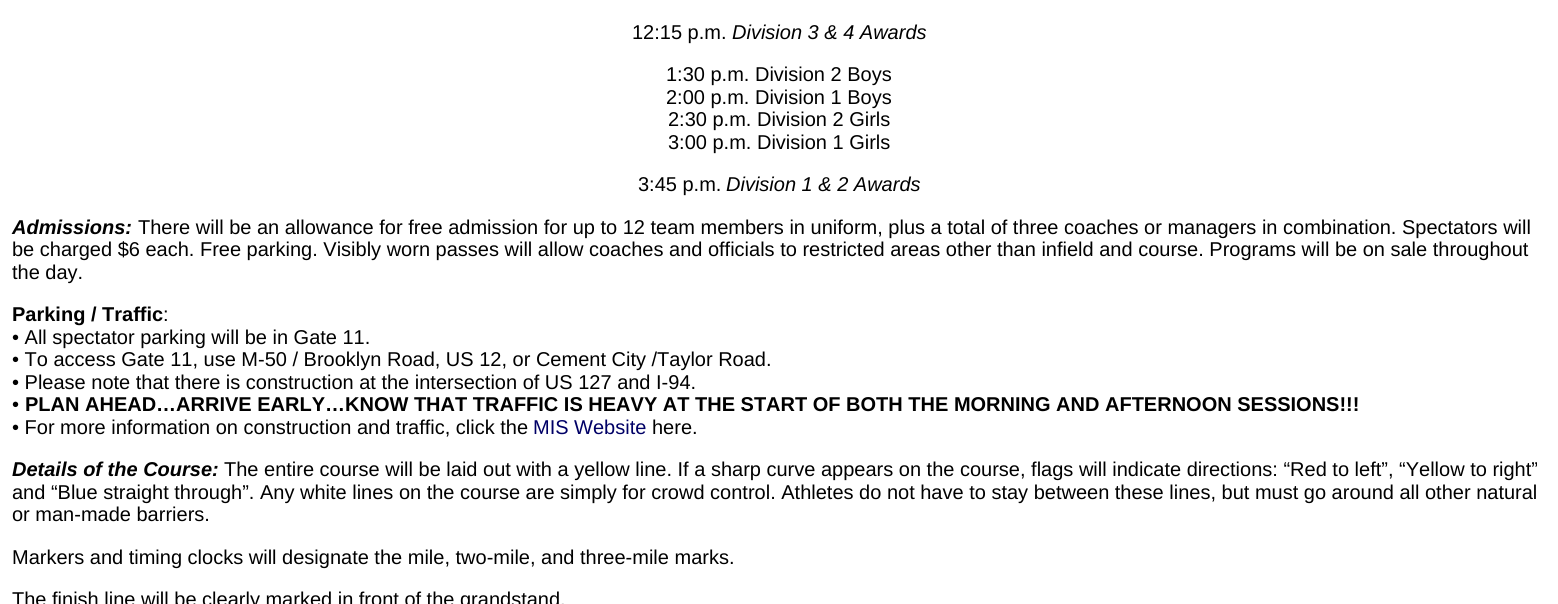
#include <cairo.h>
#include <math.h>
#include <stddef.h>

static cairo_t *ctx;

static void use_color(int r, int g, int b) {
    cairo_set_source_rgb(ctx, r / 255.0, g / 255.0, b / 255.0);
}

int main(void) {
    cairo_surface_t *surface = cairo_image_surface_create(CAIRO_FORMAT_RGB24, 1558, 604);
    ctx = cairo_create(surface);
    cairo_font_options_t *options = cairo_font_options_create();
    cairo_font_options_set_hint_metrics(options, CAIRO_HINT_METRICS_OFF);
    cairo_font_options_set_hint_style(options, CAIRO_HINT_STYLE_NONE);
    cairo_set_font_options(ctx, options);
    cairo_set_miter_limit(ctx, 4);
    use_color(255, 255, 255);
    cairo_paint(ctx);
    cairo_select_font_face(ctx, "Liberation Sans", CAIRO_FONT_SLANT_NORMAL, CAIRO_FONT_WEIGHT_NORMAL);
    cairo_set_font_size(ctx, 20);
    use_color(0, 0, 0);
    cairo_move_to(ctx, 632, 39);
    cairo_show_text(ctx, "12:15 p.m.");
    cairo_select_font_face(ctx, "Liberation Sans", CAIRO_FONT_SLANT_ITALIC, CAIRO_FONT_WEIGHT_NORMAL);
    cairo_move_to(ctx, 732, 39);
    cairo_show_text(ctx, "Division 3 & 4 Awards");
    cairo_select_font_face(ctx, "Liberation Sans", CAIRO_FONT_SLANT_NORMAL, CAIRO_FONT_WEIGHT_NORMAL);
    cairo_move_to(ctx, 666, 81);
    cairo_show_text(ctx, "1:30 p.m. Division 2 Boys");
    cairo_move_to(ctx, 666, 104);
    cairo_show_text(ctx, "2:00 p.m. Division 1 Boys");
    cairo_move_to(ctx, 668, 126);
    cairo_show_text(ctx, "2:30 p.m. Division 2 Girls");
    cairo_move_to(ctx, 668, 149);
    cairo_show_text(ctx, "3:00 p.m. Division 1 Girls");
    cairo_move_to(ctx, 638, 191);
    cairo_show_text(ctx, "3:45 p.m.");
    cairo_select_font_face(ctx, "Liberation Sans", CAIRO_FONT_SLANT_ITALIC, CAIRO_FONT_WEIGHT_NORMAL);
    cairo_move_to(ctx, 726, 191);
    cairo_show_text(ctx, "Division 1 & 2 Awards");
    cairo_select_font_face(ctx, "Liberation Sans", CAIRO_FONT_SLANT_ITALIC, CAIRO_FONT_WEIGHT_BOLD);
    cairo_move_to(ctx, 12, 234);
    cairo_show_text(ctx, "Admissions:");
    cairo_select_font_face(ctx, "Liberation Sans", CAIRO_FONT_SLANT_NORMAL, CAIRO_FONT_WEIGHT_NORMAL);
    cairo_move_to(ctx, 138, 234);
    cairo_show_text(ctx, "There will be an allowance for free admission for up to 12 team members in uniform, plus a total of three coaches or managers in combination. Spectators will");
    cairo_move_to(ctx, 12, 256);
    cairo_show_text(ctx, "be charged $6 each. Free parking. Visibly worn passes will allow coaches and officials to restricted areas other than infield and course. Programs will be on sale throughout");
    cairo_move_to(ctx, 12, 279);
    cairo_show_text(ctx, "the day.");
    cairo_select_font_face(ctx, "Liberation Sans", CAIRO_FONT_SLANT_NORMAL, CAIRO_FONT_WEIGHT_BOLD);
    cairo_move_to(ctx, 12, 321);
    cairo_show_text(ctx, "Parking / Traffic");
    cairo_select_font_face(ctx, "Liberation Sans", CAIRO_FONT_SLANT_NORMAL, CAIRO_FONT_WEIGHT_NORMAL);
    cairo_move_to(ctx, 163, 321);
    cairo_show_text(ctx, ":");
    cairo_move_to(ctx, 12, 344);
    cairo_show_text(ctx, "• All spectator parking will be in Gate 11.");
    cairo_move_to(ctx, 12, 366);
    cairo_show_text(ctx, "• To access Gate 11, use M-50 / Brooklyn Road, US 12, or Cement City /Taylor Road.");
    cairo_move_to(ctx, 12, 389);
    cairo_show_text(ctx, "• Please note that there is construction at the intersection of US 127 and I-94.");
    cairo_move_to(ctx, 12, 411);
    cairo_show_text(ctx, "•");
    cairo_select_font_face(ctx, "Liberation Sans", CAIRO_FONT_SLANT_NORMAL, CAIRO_FONT_WEIGHT_BOLD);
    cairo_move_to(ctx, 25, 411);
    cairo_show_text(ctx, "PLAN AHEAD…ARRIVE EARLY…KNOW THAT TRAFFIC IS HEAVY AT THE START OF BOTH THE MORNING AND AFTERNOON SESSIONS!!!");
    cairo_select_font_face(ctx, "Liberation Sans", CAIRO_FONT_SLANT_NORMAL, CAIRO_FONT_WEIGHT_NORMAL);
    cairo_move_to(ctx, 12, 434);
    cairo_show_text(ctx, "• For more information on construction and traffic, click the");
    use_color(0, 0, 102);
    cairo_move_to(ctx, 533, 434);
    cairo_show_text(ctx, "MIS Website");
    use_color(0, 0, 0);
    cairo_move_to(ctx, 652, 434);
    cairo_show_text(ctx, "here.");
    cairo_select_font_face(ctx, "Liberation Sans", CAIRO_FONT_SLANT_ITALIC, CAIRO_FONT_WEIGHT_BOLD);
    cairo_move_to(ctx, 12, 476);
    cairo_show_text(ctx, "Details of the Course:");
    cairo_select_font_face(ctx, "Liberation Sans", CAIRO_FONT_SLANT_NORMAL, CAIRO_FONT_WEIGHT_NORMAL);
    cairo_move_to(ctx, 224, 476);
    cairo_show_text(ctx, "The entire course will be laid out with a yellow line. If a sharp curve appears on the course, flags will indicate directions: “Red to left”, “Yellow to right”");
    cairo_move_to(ctx, 12, 499);
    cairo_show_text(ctx, "and “Blue straight through”. Any white lines on the course are simply for crowd control. Athletes do not have to stay between these lines, but must go around all other natural");
    cairo_move_to(ctx, 12, 521);
    cairo_show_text(ctx, "or man-made barriers.");
    cairo_move_to(ctx, 12, 564);
    cairo_show_text(ctx, "Markers and timing clocks will designate the mile, two-mile, and three-mile marks.");
    cairo_move_to(ctx, 12, 606);
    cairo_show_text(ctx, "The finish line will be clearly marked in front of the grandstand.");
    cairo_surface_write_to_png(surface, "result.png");
    cairo_font_options_destroy(options);
    cairo_destroy(ctx);
    cairo_surface_destroy(surface);
    return 0;
}
